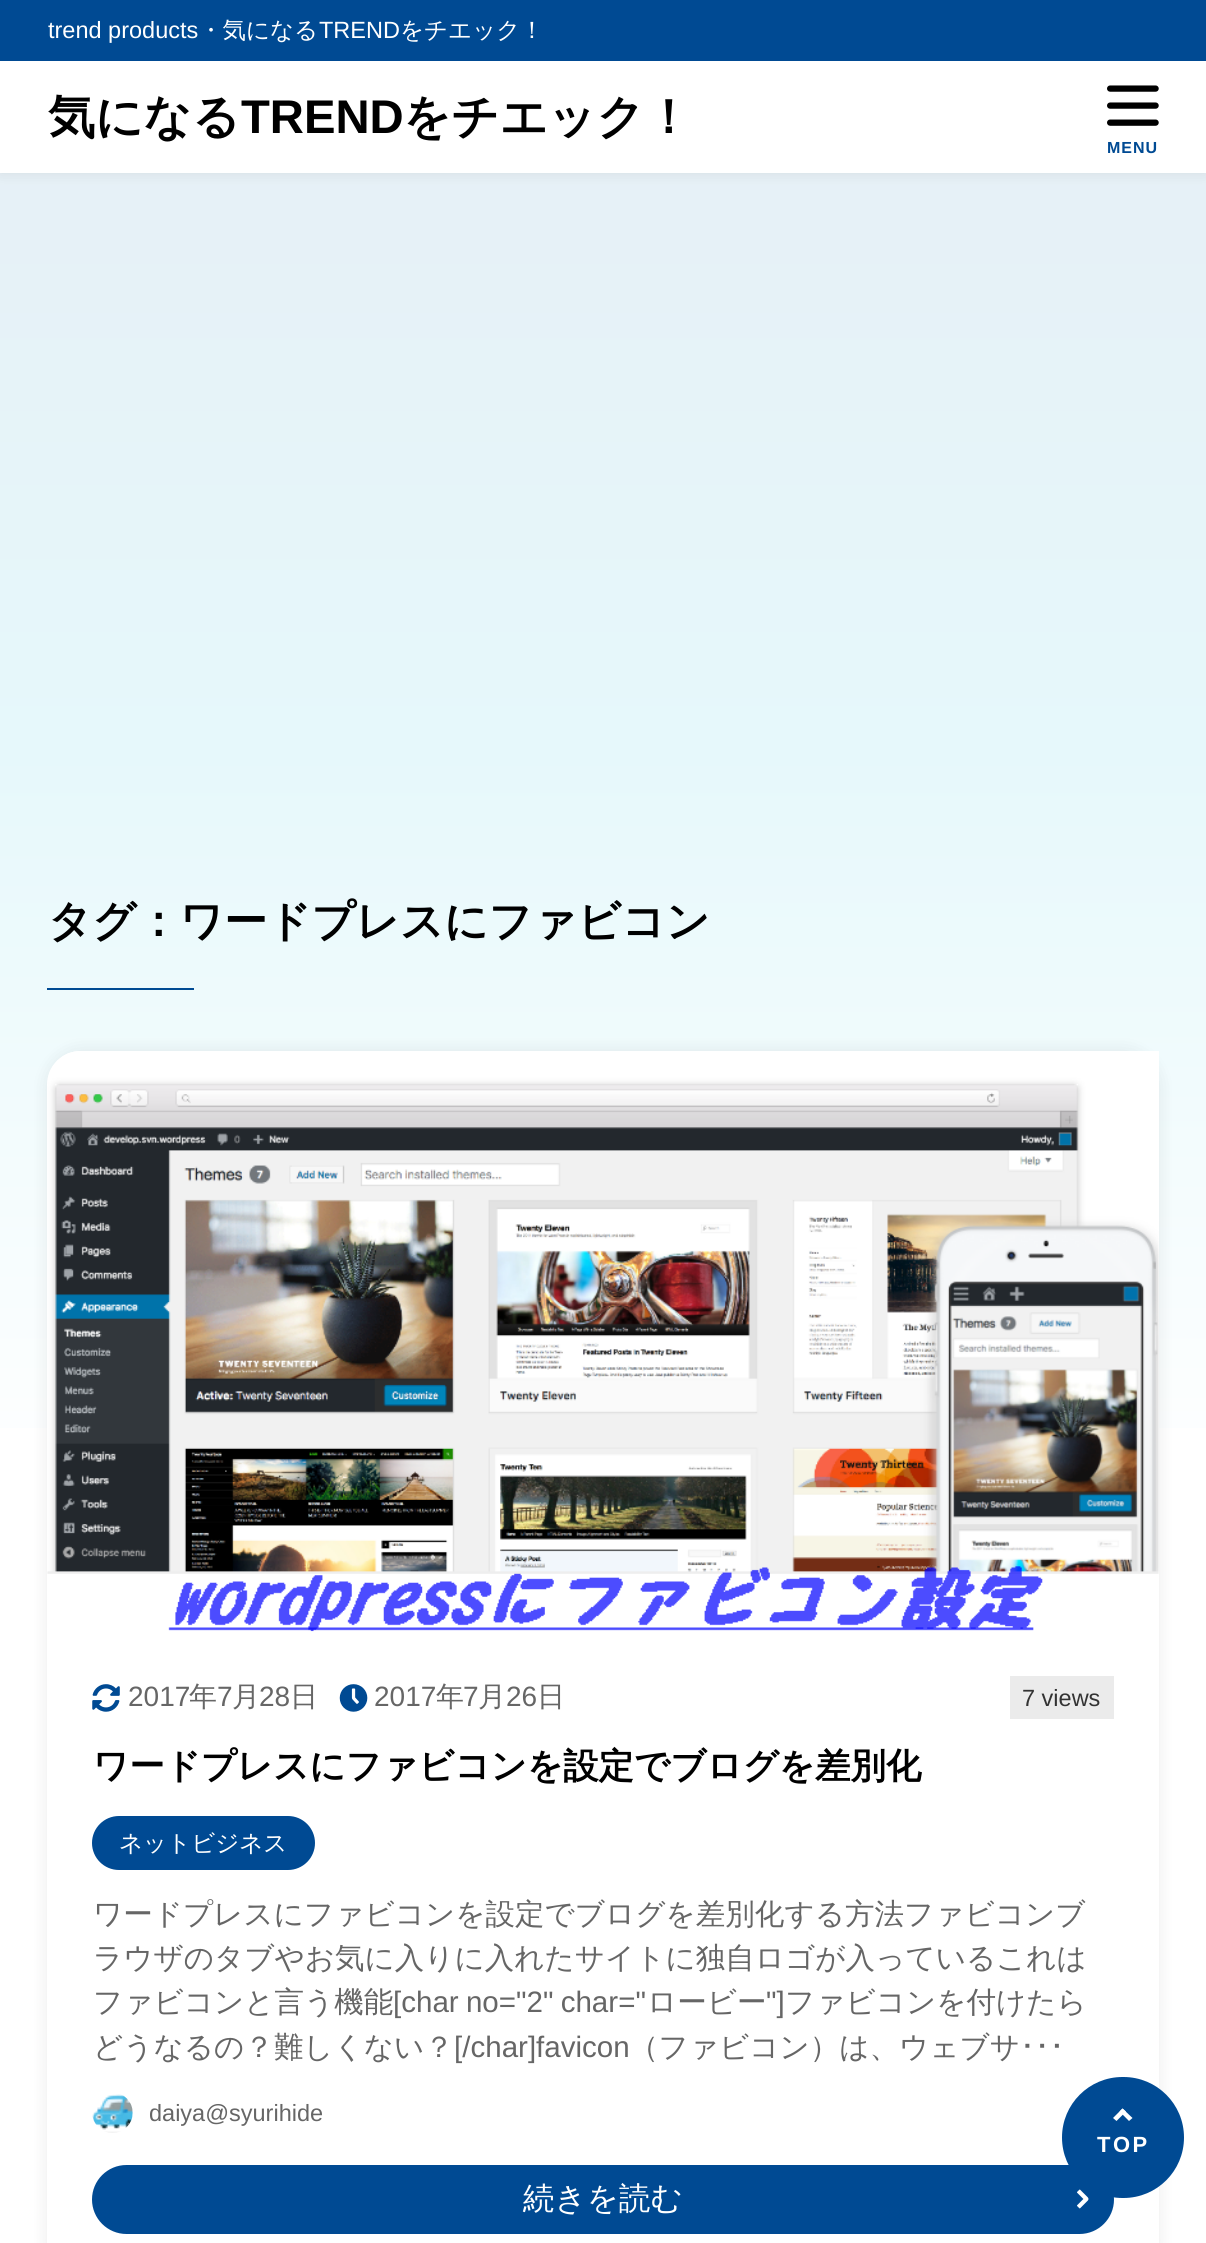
#include <cairo.h>
#include <math.h>
#include <stddef.h>

static cairo_t *ctx;

static void use_color(int r, int g, int b) {
    cairo_set_source_rgb(ctx, r / 255.0, g / 255.0, b / 255.0);
}

static void spaced_text(double x, double y, const char *s, double letter, double word) {
    cairo_move_to(ctx, x, y);
    while (*s) {
        char ch[5] = {0};
        int n = 0;
        do ch[n++] = *s++; while ((*s & 0xC0) == 0x80);
        cairo_show_text(ctx, ch);
        cairo_rel_move_to(ctx, letter + word * (*ch == ' '), 0);
    }
}

static void round_rect(double x, double y, double w, double h, double r) {
    cairo_new_sub_path(ctx);
    cairo_arc(ctx, x + w - r, y + h - r, r, 0, M_PI / 2);
    cairo_arc(ctx, x + r, y + h - r, r, M_PI / 2, M_PI);
    cairo_arc(ctx, x + r, y + r, r, M_PI, 1.5 * M_PI);
    cairo_arc(ctx, x + w - r, y + r, r, 1.5 * M_PI, 2 * M_PI);
    cairo_close_path(ctx);
}

static void shadow(double x, double y, double w, double h, double r, double blur, double alpha) {
    cairo_push_group_with_content(ctx, CAIRO_CONTENT_ALPHA);
    cairo_set_operator(ctx, CAIRO_OPERATOR_SOURCE);
    for (int i = 15; i >= -15 && fmin(w, h) + blur * i / 3 > 0; i -= 2) {
        double e = blur * i / 6;
        cairo_set_source_rgba(ctx, 0, 0, 0, alpha * erfc((i - 1) / 8.5) / 2);
        round_rect(x - e, y - e, w + 2 * e, h + 2 * e, fmax(0, fmin(r + e + blur * .6, fmin(w, h) / 2 + e)));
        cairo_fill(ctx);
    }
    cairo_pattern_t *soft = cairo_pop_group(ctx);
    cairo_mask(ctx, soft);
    cairo_pattern_destroy(soft);
}

static void picture(const char *path, double x, double y, double w, double h) {
    cairo_surface_t *image = cairo_image_surface_create_from_png(path);
    cairo_save(ctx);
    cairo_set_source_surface(ctx, image, x, y);
    cairo_rectangle(ctx, x, y, w, h);
    cairo_fill(ctx);
    cairo_restore(ctx);
    cairo_surface_destroy(image);
}

int main(void) {
    cairo_surface_t *surface = cairo_image_surface_create(CAIRO_FORMAT_RGB24, 1206, 2243);
    ctx = cairo_create(surface);
    cairo_font_options_t *options = cairo_font_options_create();
    cairo_font_options_set_hint_metrics(options, CAIRO_HINT_METRICS_OFF);
    cairo_font_options_set_hint_style(options, CAIRO_HINT_STYLE_NONE);
    cairo_set_font_options(ctx, options);
    cairo_set_miter_limit(ctx, 4);
    cairo_pattern_t *gradient;
    use_color(255, 255, 255);
    cairo_paint(ctx);
    gradient = cairo_pattern_create_linear(603, 0, 603, 1503);
    cairo_pattern_add_color_stop_rgba(gradient, 0, 0.902, 0.933, 0.961, 1);
    cairo_pattern_add_color_stop_rgba(gradient, 0.5, 0.902, 0.973, 0.984, 1);
    cairo_pattern_add_color_stop_rgba(gradient, 1, 1, 1, 1, 1);
    cairo_set_source(ctx, gradient);
    cairo_pattern_destroy(gradient);
    cairo_rectangle(ctx, 0, 173, 1206, 1255);
    cairo_fill(ctx);
    use_color(0, 0, 0);
    shadow(0, 0, 1206, 173, 0, 7, 0.08);
    use_color(255, 255, 255);
    cairo_rectangle(ctx, 0, 61, 1206, 112);
    cairo_fill(ctx);
    use_color(0, 74, 147);
    cairo_rectangle(ctx, 0, 0, 1206, 61);
    cairo_fill(ctx);
    cairo_select_font_face(ctx, "Liberation Sans", CAIRO_FONT_SLANT_NORMAL, CAIRO_FONT_WEIGHT_NORMAL);
    cairo_set_font_size(ctx, 23.5);
    use_color(255, 255, 255);
    cairo_move_to(ctx, 48, 38);
    cairo_show_text(ctx, "trend products");
    cairo_select_font_face(ctx, "WenQuanYi Zen Hei Medium", CAIRO_FONT_SLANT_NORMAL, CAIRO_FONT_WEIGHT_NORMAL);
    cairo_move_to(ctx, 199, 38);
    cairo_show_text(ctx, "・気になる");
    cairo_select_font_face(ctx, "Liberation Sans", CAIRO_FONT_SLANT_NORMAL, CAIRO_FONT_WEIGHT_NORMAL);
    cairo_move_to(ctx, 319, 38);
    cairo_show_text(ctx, "TREND");
    cairo_select_font_face(ctx, "WenQuanYi Zen Hei Medium", CAIRO_FONT_SLANT_NORMAL, CAIRO_FONT_WEIGHT_NORMAL);
    cairo_move_to(ctx, 400, 38);
    cairo_show_text(ctx, "をチエック！");
    cairo_select_font_face(ctx, "WenQuanYi Zen Hei", CAIRO_FONT_SLANT_NORMAL, CAIRO_FONT_WEIGHT_BOLD);
    cairo_set_font_size(ctx, 47.25);
    use_color(0, 0, 0);
    cairo_move_to(ctx, 48, 133);
    cairo_show_text(ctx, "気になる");
    cairo_select_font_face(ctx, "Liberation Sans", CAIRO_FONT_SLANT_NORMAL, CAIRO_FONT_WEIGHT_BOLD);
    cairo_move_to(ctx, 241, 133);
    cairo_show_text(ctx, "TREND");
    cairo_select_font_face(ctx, "WenQuanYi Zen Hei", CAIRO_FONT_SLANT_NORMAL, CAIRO_FONT_WEIGHT_BOLD);
    cairo_move_to(ctx, 403, 133);
    cairo_show_text(ctx, "をチエック！");
    picture("img1.png", 1107, 85, 52, 41);
    cairo_select_font_face(ctx, "Liberation Sans", CAIRO_FONT_SLANT_NORMAL, CAIRO_FONT_WEIGHT_BOLD);
    cairo_set_font_size(ctx, 16);
    use_color(0, 74, 147);
    spaced_text(1107, 153, "MENU", 1, 0);
    cairo_select_font_face(ctx, "WenQuanYi Zen Hei", CAIRO_FONT_SLANT_NORMAL, CAIRO_FONT_WEIGHT_BOLD);
    cairo_set_font_size(ctx, 43.25);
    use_color(0, 0, 0);
    cairo_move_to(ctx, 48, 936);
    cairo_show_text(ctx, "タグ：ワードプレスにファビコン");
    use_color(0, 74, 147);
    cairo_rectangle(ctx, 47, 988, 147, 2);
    cairo_fill(ctx);
    use_color(0, 0, 0);
    shadow(47, 1051, 1112, 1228, 34, 9, 0.08);
    use_color(255, 255, 255);
    cairo_new_path(ctx);
    cairo_move_to(ctx, 81, 1051);
    cairo_line_to(ctx, 1159, 1051);
    cairo_line_to(ctx, 1159, 2243);
    cairo_curve_to(ctx, 1159, 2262, 1144, 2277, 1125, 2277);
    cairo_line_to(ctx, 47, 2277);
    cairo_line_to(ctx, 47, 1085);
    cairo_curve_to(ctx, 47, 1066, 62, 1051, 81, 1051);
    cairo_close_path(ctx);
    cairo_fill(ctx);
    picture("img2.png", 47, 1051, 1112, 581);
    picture("img3.png", 92, 1684, 28, 28);
    cairo_select_font_face(ctx, "Liberation Sans", CAIRO_FONT_SLANT_NORMAL, CAIRO_FONT_WEIGHT_NORMAL);
    cairo_set_font_size(ctx, 28);
    use_color(102, 102, 102);
    cairo_move_to(ctx, 128, 1706);
    cairo_show_text(ctx, "2017");
    cairo_select_font_face(ctx, "WenQuanYi Zen Hei Medium", CAIRO_FONT_SLANT_NORMAL, CAIRO_FONT_WEIGHT_NORMAL);
    cairo_move_to(ctx, 189, 1706);
    cairo_show_text(ctx, "年");
    cairo_select_font_face(ctx, "Liberation Sans", CAIRO_FONT_SLANT_NORMAL, CAIRO_FONT_WEIGHT_NORMAL);
    cairo_move_to(ctx, 217, 1706);
    cairo_show_text(ctx, "7");
    cairo_select_font_face(ctx, "WenQuanYi Zen Hei Medium", CAIRO_FONT_SLANT_NORMAL, CAIRO_FONT_WEIGHT_NORMAL);
    cairo_move_to(ctx, 232, 1706);
    cairo_show_text(ctx, "月");
    cairo_select_font_face(ctx, "Liberation Sans", CAIRO_FONT_SLANT_NORMAL, CAIRO_FONT_WEIGHT_NORMAL);
    cairo_move_to(ctx, 259, 1706);
    cairo_show_text(ctx, "28");
    cairo_select_font_face(ctx, "WenQuanYi Zen Hei Medium", CAIRO_FONT_SLANT_NORMAL, CAIRO_FONT_WEIGHT_NORMAL);
    cairo_move_to(ctx, 290, 1706);
    cairo_show_text(ctx, "日");
    picture("img4.png", 339, 1684, 29, 28);
    cairo_select_font_face(ctx, "Liberation Sans", CAIRO_FONT_SLANT_NORMAL, CAIRO_FONT_WEIGHT_NORMAL);
    cairo_move_to(ctx, 374, 1706);
    cairo_show_text(ctx, "2017");
    cairo_select_font_face(ctx, "WenQuanYi Zen Hei Medium", CAIRO_FONT_SLANT_NORMAL, CAIRO_FONT_WEIGHT_NORMAL);
    cairo_move_to(ctx, 436, 1706);
    cairo_show_text(ctx, "年");
    cairo_select_font_face(ctx, "Liberation Sans", CAIRO_FONT_SLANT_NORMAL, CAIRO_FONT_WEIGHT_NORMAL);
    cairo_move_to(ctx, 463, 1706);
    cairo_show_text(ctx, "7");
    cairo_select_font_face(ctx, "WenQuanYi Zen Hei Medium", CAIRO_FONT_SLANT_NORMAL, CAIRO_FONT_WEIGHT_NORMAL);
    cairo_move_to(ctx, 478, 1706);
    cairo_show_text(ctx, "月");
    cairo_select_font_face(ctx, "Liberation Sans", CAIRO_FONT_SLANT_NORMAL, CAIRO_FONT_WEIGHT_NORMAL);
    cairo_move_to(ctx, 506, 1706);
    cairo_show_text(ctx, "26");
    cairo_select_font_face(ctx, "WenQuanYi Zen Hei Medium", CAIRO_FONT_SLANT_NORMAL, CAIRO_FONT_WEIGHT_NORMAL);
    cairo_move_to(ctx, 537, 1706);
    cairo_show_text(ctx, "日");
    use_color(235, 235, 235);
    cairo_rectangle(ctx, 1010, 1676, 104, 43);
    cairo_fill(ctx);
    cairo_select_font_face(ctx, "Liberation Sans", CAIRO_FONT_SLANT_NORMAL, CAIRO_FONT_WEIGHT_NORMAL);
    cairo_set_font_size(ctx, 23.5);
    use_color(51, 51, 51);
    cairo_move_to(ctx, 1022, 1706);
    cairo_show_text(ctx, "7 views");
    cairo_select_font_face(ctx, "WenQuanYi Zen Hei", CAIRO_FONT_SLANT_NORMAL, CAIRO_FONT_WEIGHT_BOLD);
    cairo_set_font_size(ctx, 35.4);
    use_color(0, 0, 0);
    cairo_move_to(ctx, 93, 1778);
    cairo_show_text(ctx, "ワードプレスにファビコンを設定でブログを差別化");
    use_color(0, 74, 147);
    round_rect(93, 1817, 221, 52, 26);
    cairo_fill_preserve(ctx);
    cairo_stroke(ctx);
    cairo_select_font_face(ctx, "WenQuanYi Zen Hei Medium", CAIRO_FONT_SLANT_NORMAL, CAIRO_FONT_WEIGHT_NORMAL);
    cairo_set_font_size(ctx, 23.5);
    use_color(255, 255, 255);
    cairo_move_to(ctx, 119, 1851);
    cairo_show_text(ctx, "ネットビジネス");
    cairo_set_font_size(ctx, 29.55);
    use_color(102, 102, 102);
    cairo_move_to(ctx, 93, 1924);
    cairo_show_text(ctx, "ワードプレスにファビコンを設定でブログを差別化する方法ファビコンブ");
    cairo_move_to(ctx, 93, 1968);
    cairo_show_text(ctx, "ラウザのタブやお気に入りに入れたサイトに独自ロゴが入っているこれは");
    cairo_move_to(ctx, 93, 2012);
    cairo_show_text(ctx, "ファビコンと言う機能");
    cairo_select_font_face(ctx, "Liberation Sans", CAIRO_FONT_SLANT_NORMAL, CAIRO_FONT_WEIGHT_NORMAL);
    spaced_text(393, 2012, "[char no=\"2\" char=\"", 0, -1);
    cairo_select_font_face(ctx, "WenQuanYi Zen Hei Medium", CAIRO_FONT_SLANT_NORMAL, CAIRO_FONT_WEIGHT_NORMAL);
    cairo_move_to(ctx, 647, 2012);
    cairo_show_text(ctx, "ロービー");
    cairo_select_font_face(ctx, "Liberation Sans", CAIRO_FONT_SLANT_NORMAL, CAIRO_FONT_WEIGHT_NORMAL);
    cairo_move_to(ctx, 766, 2012);
    cairo_show_text(ctx, "\"]");
    cairo_select_font_face(ctx, "WenQuanYi Zen Hei Medium", CAIRO_FONT_SLANT_NORMAL, CAIRO_FONT_WEIGHT_NORMAL);
    cairo_move_to(ctx, 785, 2012);
    cairo_show_text(ctx, "ファビコンを付けたら");
    cairo_move_to(ctx, 93, 2057);
    cairo_show_text(ctx, "どうなるの？難しくない？");
    cairo_select_font_face(ctx, "Liberation Sans", CAIRO_FONT_SLANT_NORMAL, CAIRO_FONT_WEIGHT_NORMAL);
    cairo_move_to(ctx, 454, 2057);
    cairo_show_text(ctx, "[/char]favicon");
    cairo_select_font_face(ctx, "WenQuanYi Zen Hei Medium", CAIRO_FONT_SLANT_NORMAL, CAIRO_FONT_WEIGHT_NORMAL);
    cairo_move_to(ctx, 629, 2057);
    cairo_show_text(ctx, "（ファビコン）は、ウェブサ");
    cairo_select_font_face(ctx, "IPAPGothic", CAIRO_FONT_SLANT_NORMAL, CAIRO_FONT_WEIGHT_NORMAL);
    cairo_move_to(ctx, 1020, 2057);
    cairo_show_text(ctx, "･･･");
    picture("img5.png", 92, 2094, 41, 39);
    cairo_select_font_face(ctx, "Liberation Sans", CAIRO_FONT_SLANT_NORMAL, CAIRO_FONT_WEIGHT_NORMAL);
    cairo_set_font_size(ctx, 23.5);
    cairo_move_to(ctx, 149, 2121);
    cairo_show_text(ctx, "daiya@syurihide");
    use_color(0, 74, 147);
    round_rect(93, 2166, 1020, 67, 33.5);
    cairo_fill_preserve(ctx);
    cairo_stroke(ctx);
    cairo_select_font_face(ctx, "WenQuanYi Zen Hei Medium", CAIRO_FONT_SLANT_NORMAL, CAIRO_FONT_WEIGHT_NORMAL);
    cairo_set_font_size(ctx, 31.5);
    use_color(255, 255, 255);
    cairo_move_to(ctx, 523, 2209);
    cairo_show_text(ctx, "続きを読む");
    picture("img6.png", 1077, 2189, 12, 20);
    use_color(0, 74, 147);
    round_rect(1062, 2077, 122, 121, 60.5);
    cairo_fill(ctx);
    use_color(255, 255, 255);
    cairo_new_path(ctx);
    cairo_move_to(ctx, 1122.5, 2108.5);
    cairo_line_to(ctx, 1132.5, 2118);
    cairo_line_to(ctx, 1129, 2121);
    cairo_line_to(ctx, 1119.5, 2111.5);
    cairo_close_path(ctx);
    cairo_fill(ctx);
    cairo_new_path(ctx);
    cairo_move_to(ctx, 1122.5, 2108.5);
    cairo_line_to(ctx, 1126, 2111.5);
    cairo_line_to(ctx, 1116.5, 2121);
    cairo_line_to(ctx, 1113, 2118);
    cairo_close_path(ctx);
    cairo_fill(ctx);
    cairo_select_font_face(ctx, "Liberation Sans", CAIRO_FONT_SLANT_NORMAL, CAIRO_FONT_WEIGHT_BOLD);
    cairo_set_font_size(ctx, 22);
    spaced_text(1097, 2152, "TOP", 2.5, 0);
    cairo_surface_write_to_png(surface, "result.png");
    cairo_font_options_destroy(options);
    cairo_destroy(ctx);
    cairo_surface_destroy(surface);
    return 0;
}
